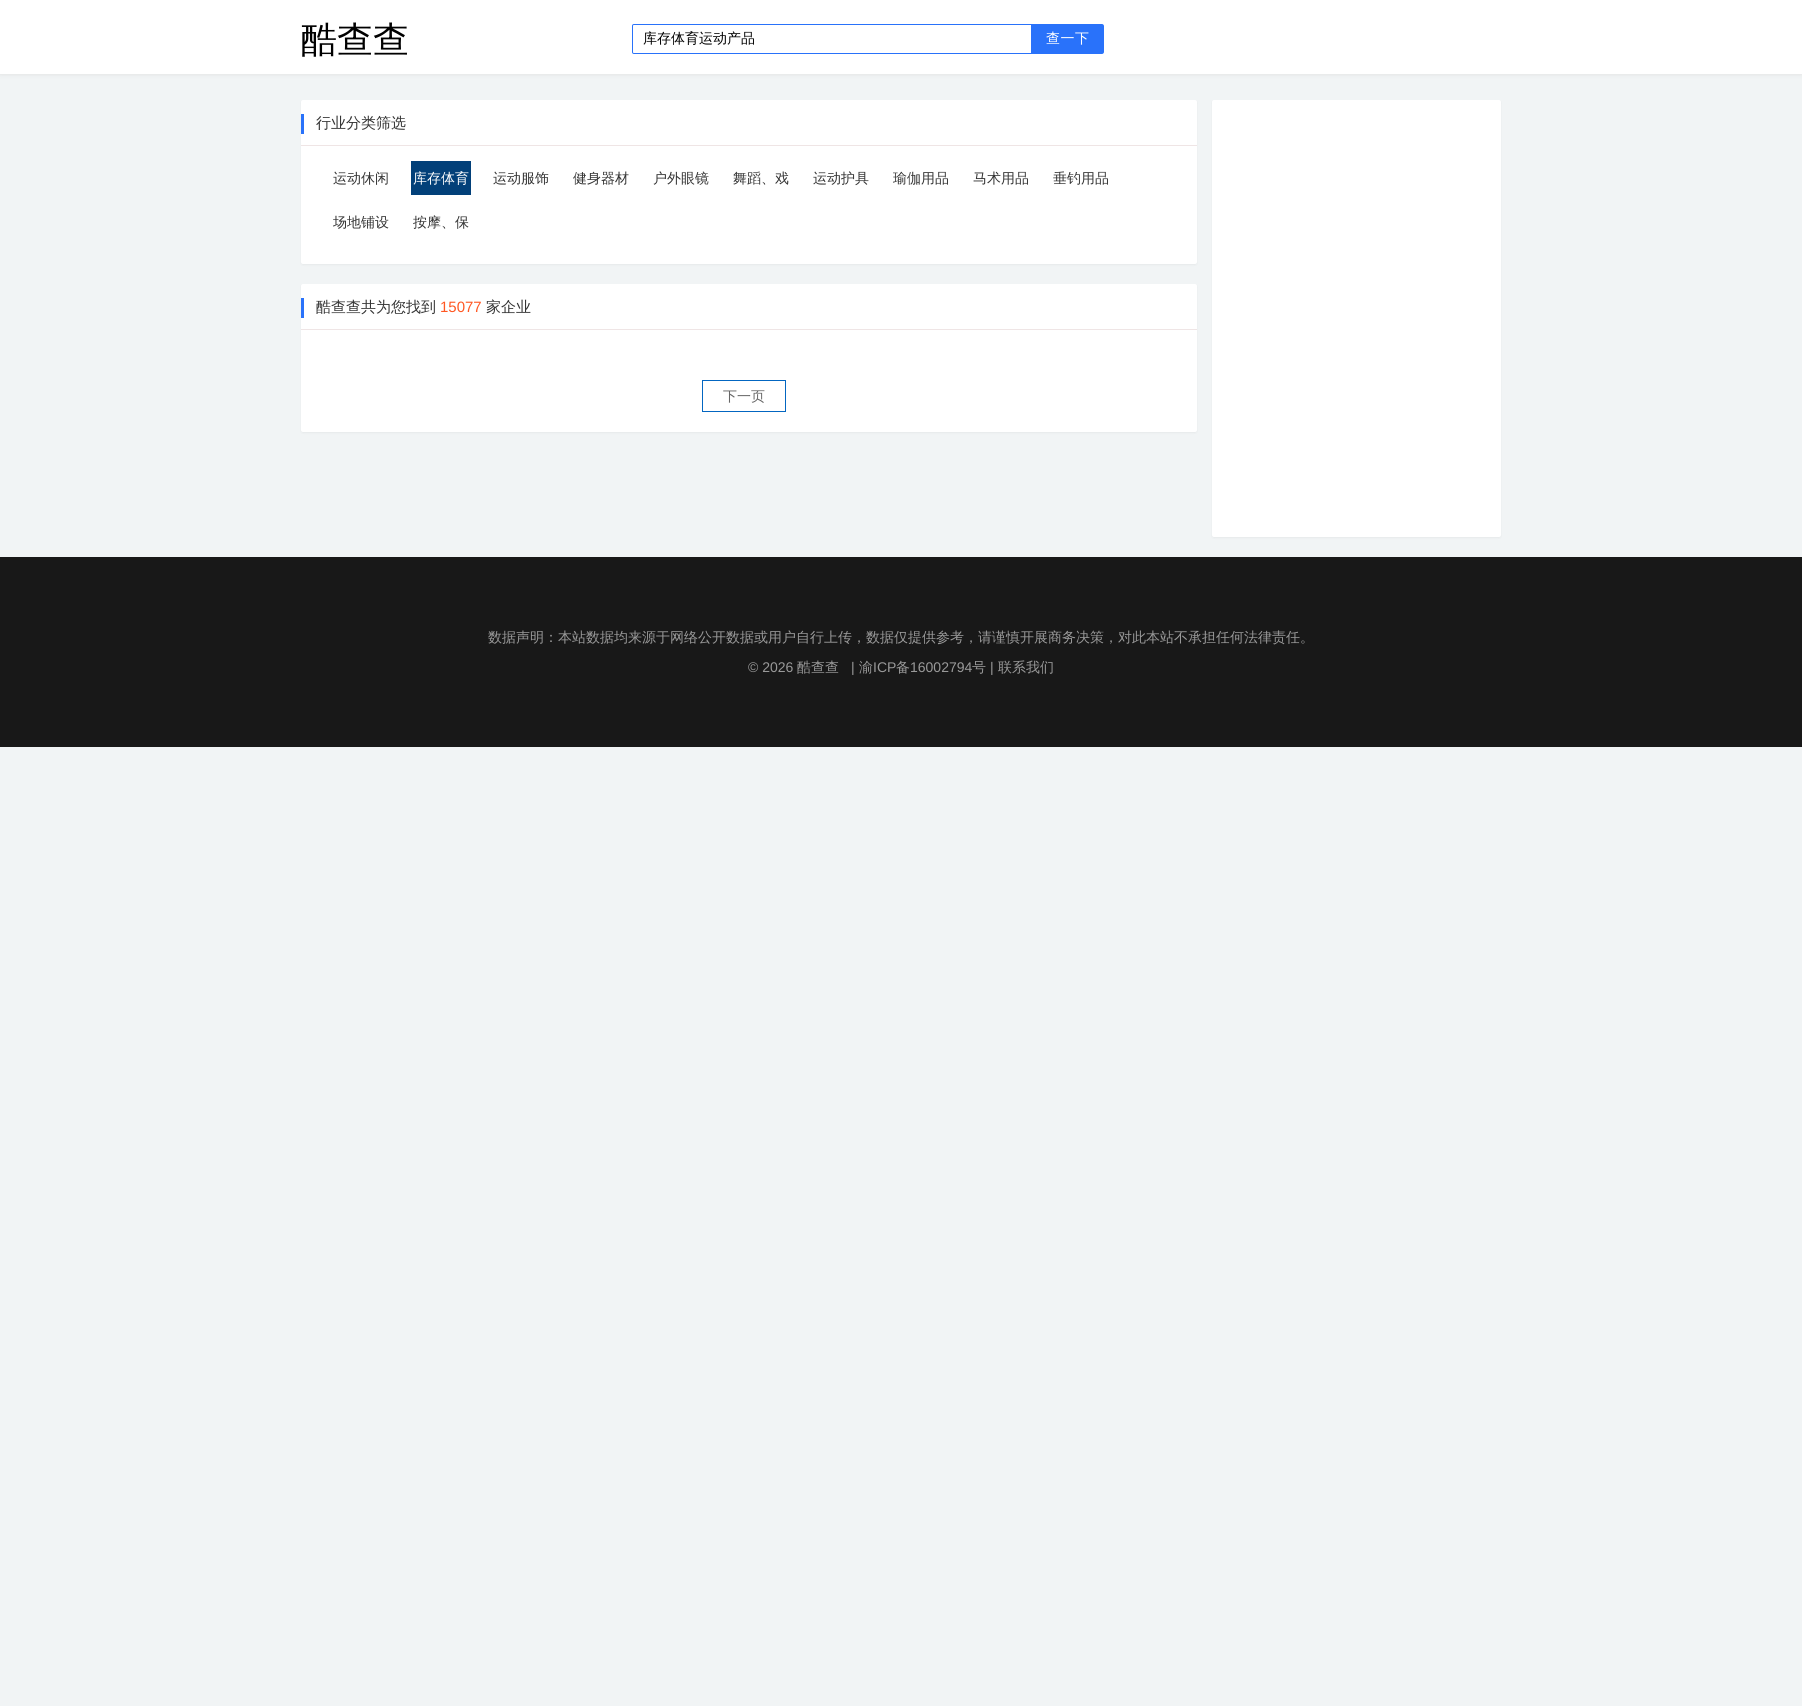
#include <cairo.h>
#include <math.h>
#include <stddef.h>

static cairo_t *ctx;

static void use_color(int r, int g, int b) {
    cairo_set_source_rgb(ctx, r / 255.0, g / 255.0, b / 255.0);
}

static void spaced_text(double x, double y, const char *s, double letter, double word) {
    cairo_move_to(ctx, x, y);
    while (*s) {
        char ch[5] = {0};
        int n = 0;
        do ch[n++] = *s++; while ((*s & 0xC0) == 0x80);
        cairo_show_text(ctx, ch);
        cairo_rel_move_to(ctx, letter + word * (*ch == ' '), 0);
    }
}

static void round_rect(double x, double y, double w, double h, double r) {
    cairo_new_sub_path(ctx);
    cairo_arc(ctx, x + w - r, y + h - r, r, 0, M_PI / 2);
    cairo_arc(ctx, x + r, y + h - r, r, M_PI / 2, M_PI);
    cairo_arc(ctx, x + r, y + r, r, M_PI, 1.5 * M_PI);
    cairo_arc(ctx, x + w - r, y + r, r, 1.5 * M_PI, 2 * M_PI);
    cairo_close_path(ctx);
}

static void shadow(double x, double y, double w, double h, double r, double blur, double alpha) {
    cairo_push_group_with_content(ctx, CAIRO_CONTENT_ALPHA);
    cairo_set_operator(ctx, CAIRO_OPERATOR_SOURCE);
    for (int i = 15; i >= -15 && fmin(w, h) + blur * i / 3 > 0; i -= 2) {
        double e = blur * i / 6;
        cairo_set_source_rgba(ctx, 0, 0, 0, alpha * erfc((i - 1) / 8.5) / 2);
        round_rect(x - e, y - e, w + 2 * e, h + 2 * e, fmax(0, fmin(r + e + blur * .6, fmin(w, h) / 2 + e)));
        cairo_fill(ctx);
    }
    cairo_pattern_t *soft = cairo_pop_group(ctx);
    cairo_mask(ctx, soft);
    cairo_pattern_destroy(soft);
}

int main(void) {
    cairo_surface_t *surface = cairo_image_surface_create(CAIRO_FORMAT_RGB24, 1802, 1706);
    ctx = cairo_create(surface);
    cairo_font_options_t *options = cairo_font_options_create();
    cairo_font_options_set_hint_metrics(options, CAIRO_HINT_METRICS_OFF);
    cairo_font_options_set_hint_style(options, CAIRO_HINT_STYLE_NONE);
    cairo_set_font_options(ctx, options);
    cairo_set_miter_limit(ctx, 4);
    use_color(241, 244, 245);
    cairo_paint(ctx);
    use_color(221, 221, 221);
    shadow(0, 0, 1802, 74, 0, 2.5, 1);
    use_color(255, 255, 255);
    cairo_rectangle(ctx, 0, 0, 1802, 74);
    cairo_fill(ctx);
    cairo_select_font_face(ctx, "WenQuanYi Zen Hei Medium", CAIRO_FONT_SLANT_NORMAL, CAIRO_FONT_WEIGHT_NORMAL);
    cairo_set_font_size(ctx, 36);
    use_color(0, 0, 0);
    cairo_move_to(ctx, 301, 52);
    cairo_show_text(ctx, "酷查查");
    cairo_new_path(ctx);
    cairo_move_to(ctx, 634, 24.5);
    cairo_line_to(ctx, 1031.5, 24.5);
    cairo_line_to(ctx, 1031.5, 53.5);
    cairo_line_to(ctx, 634, 53.5);
    cairo_curve_to(ctx, 633, 53.5, 632.5, 53, 632.5, 52);
    cairo_line_to(ctx, 632.5, 26);
    cairo_curve_to(ctx, 632.5, 25, 633, 24.5, 634, 24.5);
    cairo_close_path(ctx);
    use_color(41, 114, 250);
    cairo_set_line_width(ctx, 1);
    cairo_stroke(ctx);
    cairo_set_font_size(ctx, 14);
    use_color(0, 0, 0);
    cairo_move_to(ctx, 643, 43);
    cairo_show_text(ctx, "库存体育运动产品");
    use_color(41, 114, 250);
    cairo_new_path(ctx);
    cairo_move_to(ctx, 1032, 24);
    cairo_line_to(ctx, 1102, 24);
    cairo_curve_to(ctx, 1103, 24, 1104, 25, 1104, 26);
    cairo_line_to(ctx, 1104, 52);
    cairo_curve_to(ctx, 1104, 53, 1103, 54, 1102, 54);
    cairo_line_to(ctx, 1032, 54);
    cairo_close_path(ctx);
    cairo_fill(ctx);
    use_color(255, 255, 255);
    spaced_text(1046, 43, "查一下", 0.5, 0);
    use_color(0, 0, 0);
    shadow(301, 101, 896, 164, 2, 1, 0.05);
    use_color(255, 255, 255);
    round_rect(301, 100, 896, 164, 2);
    cairo_fill(ctx);
    use_color(239, 229, 229);
    cairo_rectangle(ctx, 301, 145, 896, 1);
    cairo_fill(ctx);
    use_color(41, 114, 250);
    cairo_rectangle(ctx, 301, 114, 3, 20);
    cairo_fill(ctx);
    cairo_set_font_size(ctx, 15);
    use_color(51, 51, 51);
    cairo_move_to(ctx, 316, 128);
    cairo_show_text(ctx, "行业分类筛选");
    cairo_set_font_size(ctx, 14);
    cairo_move_to(ctx, 333, 183);
    cairo_show_text(ctx, "运动休闲");
    use_color(2, 64, 121);
    cairo_rectangle(ctx, 411, 161, 60, 34);
    cairo_fill(ctx);
    use_color(255, 255, 255);
    cairo_move_to(ctx, 413, 183);
    cairo_show_text(ctx, "库存体育");
    use_color(51, 51, 51);
    cairo_move_to(ctx, 493, 183);
    cairo_show_text(ctx, "运动服饰");
    cairo_move_to(ctx, 573, 183);
    cairo_show_text(ctx, "健身器材");
    cairo_move_to(ctx, 653, 183);
    cairo_show_text(ctx, "户外眼镜");
    cairo_move_to(ctx, 733, 183);
    cairo_show_text(ctx, "舞蹈、戏");
    cairo_move_to(ctx, 813, 183);
    cairo_show_text(ctx, "运动护具");
    cairo_move_to(ctx, 893, 183);
    cairo_show_text(ctx, "瑜伽用品");
    cairo_move_to(ctx, 973, 183);
    cairo_show_text(ctx, "马术用品");
    cairo_move_to(ctx, 1053, 183);
    cairo_show_text(ctx, "垂钓用品");
    cairo_move_to(ctx, 333, 227);
    cairo_show_text(ctx, "场地铺设");
    cairo_move_to(ctx, 413, 227);
    cairo_show_text(ctx, "按摩、保");
    use_color(0, 0, 0);
    shadow(301, 285, 896, 148, 2, 1, 0.05);
    use_color(255, 255, 255);
    round_rect(301, 284, 896, 148, 2);
    cairo_fill(ctx);
    use_color(239, 229, 229);
    cairo_rectangle(ctx, 301, 329, 896, 1);
    cairo_fill(ctx);
    use_color(41, 114, 250);
    cairo_rectangle(ctx, 301, 298, 3, 20);
    cairo_fill(ctx);
    cairo_set_font_size(ctx, 15);
    use_color(51, 51, 51);
    cairo_move_to(ctx, 316, 312);
    cairo_show_text(ctx, "酷查查共为您找到");
    cairo_select_font_face(ctx, "Liberation Sans", CAIRO_FONT_SLANT_NORMAL, CAIRO_FONT_WEIGHT_NORMAL);
    use_color(255, 87, 34);
    cairo_move_to(ctx, 440, 312);
    cairo_show_text(ctx, "15077");
    cairo_select_font_face(ctx, "WenQuanYi Zen Hei Medium", CAIRO_FONT_SLANT_NORMAL, CAIRO_FONT_WEIGHT_NORMAL);
    use_color(51, 51, 51);
    cairo_move_to(ctx, 486, 312);
    cairo_show_text(ctx, "家企业");
    cairo_rectangle(ctx, 702.5, 380.5, 83, 31);
    use_color(3, 102, 193);
    cairo_stroke(ctx);
    cairo_set_font_size(ctx, 14);
    use_color(102, 102, 102);
    cairo_move_to(ctx, 723, 401);
    cairo_show_text(ctx, "下一页");
    use_color(0, 0, 0);
    shadow(1212, 101, 289, 437, 2, 1, 0.05);
    use_color(255, 255, 255);
    round_rect(1212, 100, 289, 437, 2);
    cairo_fill(ctx);
    use_color(24, 24, 24);
    cairo_rectangle(ctx, 0, 557, 1802, 190);
    cairo_fill(ctx);
    use_color(153, 153, 153);
    cairo_move_to(ctx, 488, 642);
    cairo_show_text(ctx, "数据声明：本站数据均来源于网络公开数据或用户自行上传，数据仅提供参考，请谨慎开展商务决策，对此本站不承担任何法律责任。");
    cairo_select_font_face(ctx, "Liberation Sans", CAIRO_FONT_SLANT_NORMAL, CAIRO_FONT_WEIGHT_NORMAL);
    cairo_move_to(ctx, 748, 672);
    cairo_show_text(ctx, "© 2026");
    cairo_select_font_face(ctx, "WenQuanYi Zen Hei Medium", CAIRO_FONT_SLANT_NORMAL, CAIRO_FONT_WEIGHT_NORMAL);
    cairo_move_to(ctx, 797, 672);
    cairo_show_text(ctx, "酷查查");
    cairo_select_font_face(ctx, "Liberation Sans", CAIRO_FONT_SLANT_NORMAL, CAIRO_FONT_WEIGHT_NORMAL);
    cairo_move_to(ctx, 851, 672);
    cairo_show_text(ctx, "|");
    cairo_select_font_face(ctx, "WenQuanYi Zen Hei Medium", CAIRO_FONT_SLANT_NORMAL, CAIRO_FONT_WEIGHT_NORMAL);
    cairo_move_to(ctx, 859, 672);
    cairo_show_text(ctx, "渝");
    cairo_select_font_face(ctx, "Liberation Sans", CAIRO_FONT_SLANT_NORMAL, CAIRO_FONT_WEIGHT_NORMAL);
    cairo_move_to(ctx, 873, 672);
    cairo_show_text(ctx, "ICP");
    cairo_select_font_face(ctx, "WenQuanYi Zen Hei Medium", CAIRO_FONT_SLANT_NORMAL, CAIRO_FONT_WEIGHT_NORMAL);
    cairo_move_to(ctx, 896, 672);
    cairo_show_text(ctx, "备");
    cairo_select_font_face(ctx, "Liberation Sans", CAIRO_FONT_SLANT_NORMAL, CAIRO_FONT_WEIGHT_NORMAL);
    cairo_move_to(ctx, 910, 672);
    cairo_show_text(ctx, "16002794");
    cairo_select_font_face(ctx, "WenQuanYi Zen Hei Medium", CAIRO_FONT_SLANT_NORMAL, CAIRO_FONT_WEIGHT_NORMAL);
    cairo_move_to(ctx, 972, 672);
    cairo_show_text(ctx, "号");
    cairo_select_font_face(ctx, "Liberation Sans", CAIRO_FONT_SLANT_NORMAL, CAIRO_FONT_WEIGHT_NORMAL);
    cairo_move_to(ctx, 990, 672);
    cairo_show_text(ctx, "|");
    cairo_select_font_face(ctx, "WenQuanYi Zen Hei Medium", CAIRO_FONT_SLANT_NORMAL, CAIRO_FONT_WEIGHT_NORMAL);
    cairo_move_to(ctx, 998, 672);
    cairo_show_text(ctx, "联系我们");
    cairo_surface_write_to_png(surface, "result.png");
    cairo_font_options_destroy(options);
    cairo_destroy(ctx);
    cairo_surface_destroy(surface);
    return 0;
}
